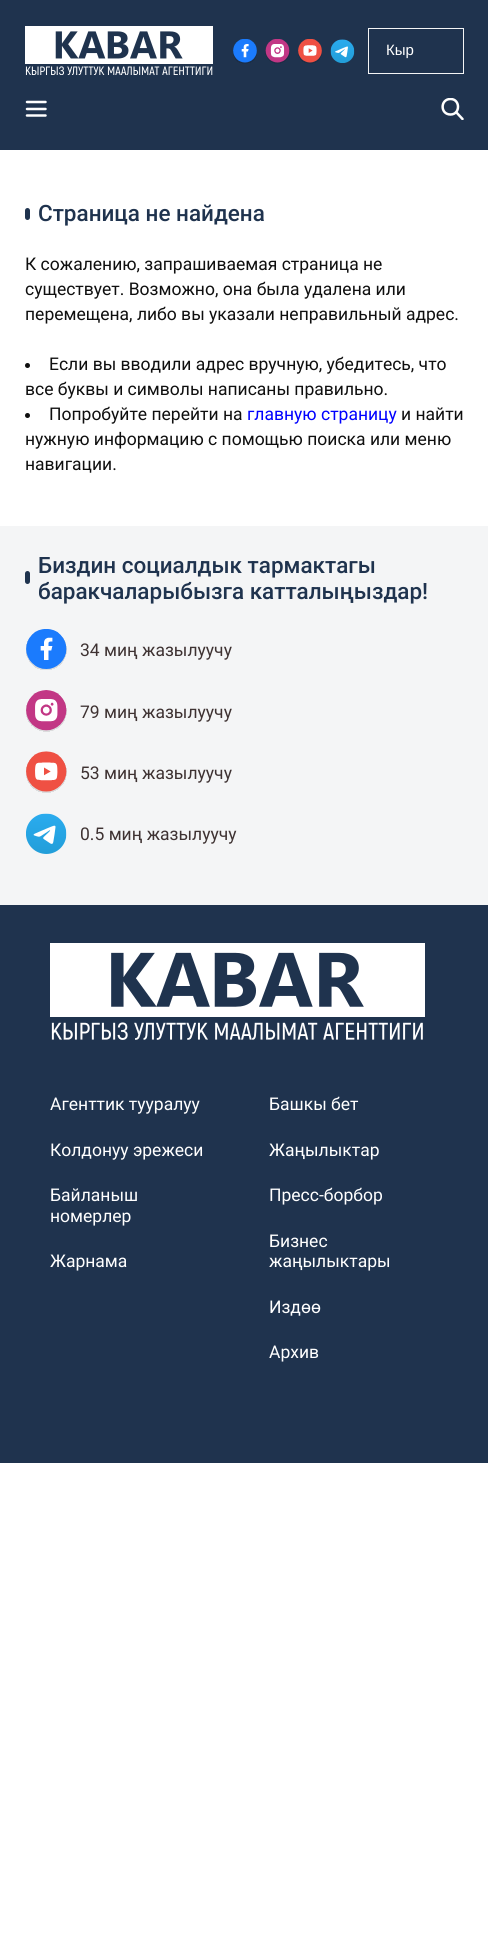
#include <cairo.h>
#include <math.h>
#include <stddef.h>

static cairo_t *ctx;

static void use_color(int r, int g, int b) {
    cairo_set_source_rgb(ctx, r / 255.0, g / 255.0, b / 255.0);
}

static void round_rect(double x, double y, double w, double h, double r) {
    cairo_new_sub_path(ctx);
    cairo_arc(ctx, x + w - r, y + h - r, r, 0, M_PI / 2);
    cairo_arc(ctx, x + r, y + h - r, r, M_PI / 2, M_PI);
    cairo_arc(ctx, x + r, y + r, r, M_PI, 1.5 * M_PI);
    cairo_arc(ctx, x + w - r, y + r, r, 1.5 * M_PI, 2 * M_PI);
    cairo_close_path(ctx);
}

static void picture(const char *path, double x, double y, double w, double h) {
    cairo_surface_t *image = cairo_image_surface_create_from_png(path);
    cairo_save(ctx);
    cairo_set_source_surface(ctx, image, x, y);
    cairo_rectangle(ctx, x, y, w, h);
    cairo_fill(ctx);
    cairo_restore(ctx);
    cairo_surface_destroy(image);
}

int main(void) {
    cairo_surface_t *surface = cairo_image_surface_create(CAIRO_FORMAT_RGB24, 488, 1960);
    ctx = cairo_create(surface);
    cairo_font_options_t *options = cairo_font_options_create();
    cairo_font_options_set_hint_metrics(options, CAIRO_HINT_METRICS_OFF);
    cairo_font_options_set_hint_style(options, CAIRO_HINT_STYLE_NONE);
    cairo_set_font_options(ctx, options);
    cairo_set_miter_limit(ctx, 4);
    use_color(255, 255, 255);
    cairo_paint(ctx);
    use_color(31, 51, 78);
    cairo_rectangle(ctx, 0, 0, 488, 150);
    cairo_fill(ctx);
    picture("img1.png", 25, 26, 188, 49);
    picture("img2.png", 233, 39, 24, 25);
    picture("img3.png", 265, 39, 25, 25);
    picture("img4.png", 298, 39, 24, 25);
    picture("img5.png", 330, 39, 25, 24);
    cairo_rectangle(ctx, 368.5, 28.5, 95, 45);
    use_color(244, 245, 246);
    cairo_set_line_width(ctx, 1);
    cairo_stroke(ctx);
    cairo_select_font_face(ctx, "Liberation Sans", CAIRO_FONT_SLANT_NORMAL, CAIRO_FONT_WEIGHT_NORMAL);
    cairo_set_font_size(ctx, 15);
    use_color(255, 255, 255);
    cairo_move_to(ctx, 386, 55);
    cairo_show_text(ctx, "Кыр");
    cairo_new_path(ctx);
    cairo_move_to(ctx, 27, 115.5);
    cairo_line_to(ctx, 45.5, 115.5);
    cairo_move_to(ctx, 27, 109);
    cairo_line_to(ctx, 45.5, 109);
    cairo_move_to(ctx, 27, 102);
    cairo_line_to(ctx, 45.5, 102);
    cairo_set_line_width(ctx, 2.5);
    cairo_set_line_cap(ctx, CAIRO_LINE_CAP_ROUND);
    cairo_set_line_join(ctx, CAIRO_LINE_JOIN_ROUND);
    cairo_stroke(ctx);
    cairo_save(ctx);
    cairo_rectangle(ctx, 441, 98, 23, 22);
    cairo_clip(ctx);
    cairo_new_path(ctx);
    cairo_move_to(ctx, 456, 112);
    cairo_line_to(ctx, 462.5, 119);
    cairo_move_to(ctx, 450.5, 114.5);
    cairo_curve_to(ctx, 440, 114.5, 440, 99, 450.5, 99);
    cairo_curve_to(ctx, 460.5, 99, 460.5, 114.5, 450.5, 114.5);
    cairo_close_path(ctx);
    cairo_stroke(ctx);
    cairo_restore(ctx);
    use_color(31, 51, 78);
    round_rect(25, 208, 5, 12, 2.5);
    cairo_fill(ctx);
    cairo_select_font_face(ctx, "Roboto Medium", CAIRO_FONT_SLANT_NORMAL, CAIRO_FONT_WEIGHT_NORMAL);
    cairo_set_font_size(ctx, 22.5);
    cairo_move_to(ctx, 38, 221);
    cairo_show_text(ctx, "Страница не найдена");
    cairo_select_font_face(ctx, "Roboto", CAIRO_FONT_SLANT_NORMAL, CAIRO_FONT_WEIGHT_NORMAL);
    cairo_set_font_size(ctx, 17.5);
    use_color(15, 15, 15);
    cairo_move_to(ctx, 25, 270);
    cairo_show_text(ctx, "К сожалению, запрашиваемая страница не");
    cairo_move_to(ctx, 25, 295);
    cairo_show_text(ctx, "существует. Возможно, она была удалена или");
    cairo_move_to(ctx, 25, 320);
    cairo_show_text(ctx, "перемещена, либо вы указали неправильный адрес.");
    cairo_new_path(ctx);
    cairo_arc(ctx, 27.5, 365.5, 2.5, 0, 2 * M_PI);
    cairo_fill(ctx);
    cairo_move_to(ctx, 49, 370);
    cairo_show_text(ctx, "Если вы вводили адрес вручную, убедитесь, что");
    cairo_move_to(ctx, 25, 395);
    cairo_show_text(ctx, "все буквы и символы написаны правильно.");
    cairo_new_path(ctx);
    cairo_arc(ctx, 27.5, 415.5, 2.5, 0, 2 * M_PI);
    cairo_fill(ctx);
    cairo_move_to(ctx, 49, 420);
    cairo_show_text(ctx, "Попробуйте перейти на");
    use_color(0, 0, 255);
    cairo_move_to(ctx, 247, 420);
    cairo_show_text(ctx, "главную страницу");
    use_color(15, 15, 15);
    cairo_move_to(ctx, 401, 420);
    cairo_show_text(ctx, "и найти");
    cairo_move_to(ctx, 25, 445);
    cairo_show_text(ctx, "нужную информацию с помощью поиска или меню");
    cairo_move_to(ctx, 25, 470);
    cairo_show_text(ctx, "навигации.");
    use_color(244, 245, 246);
    cairo_rectangle(ctx, 0, 526, 488, 379);
    cairo_fill(ctx);
    use_color(31, 51, 78);
    round_rect(25, 571, 5, 13, 2.5);
    cairo_fill(ctx);
    cairo_select_font_face(ctx, "Roboto Medium", CAIRO_FONT_SLANT_NORMAL, CAIRO_FONT_WEIGHT_NORMAL);
    cairo_set_font_size(ctx, 22.5);
    cairo_move_to(ctx, 38, 573);
    cairo_show_text(ctx, "Биздин социалдык тармактагы");
    cairo_move_to(ctx, 38, 599);
    cairo_show_text(ctx, "баракчаларыбызга катталыңыздар!");
    picture("img6.png", 26, 629, 41, 41);
    cairo_select_font_face(ctx, "Roboto", CAIRO_FONT_SLANT_NORMAL, CAIRO_FONT_WEIGHT_NORMAL);
    cairo_set_font_size(ctx, 17.5);
    use_color(62, 50, 50);
    cairo_move_to(ctx, 80, 656);
    cairo_show_text(ctx, "34 миң жазылуучу");
    picture("img7.png", 26, 690, 41, 42);
    cairo_move_to(ctx, 80, 718);
    cairo_show_text(ctx, "79 миң жазылуучу");
    picture("img8.png", 26, 751, 41, 42);
    cairo_move_to(ctx, 80, 779);
    cairo_show_text(ctx, "53 миң жазылуучу");
    picture("img9.png", 26, 813, 41, 41);
    cairo_move_to(ctx, 80, 840);
    cairo_show_text(ctx, "0.5 миң жазылуучу");
    use_color(31, 51, 78);
    cairo_rectangle(ctx, 0, 905, 488, 558);
    cairo_fill(ctx);
    picture("img10.png", 50, 943, 375, 97);
    use_color(255, 255, 255);
    cairo_move_to(ctx, 50, 1110);
    cairo_show_text(ctx, "Агенттик тууралуу");
    cairo_move_to(ctx, 50, 1156);
    cairo_show_text(ctx, "Колдонуу эрежеси");
    cairo_move_to(ctx, 50, 1201);
    cairo_show_text(ctx, "Байланыш");
    cairo_move_to(ctx, 50, 1222);
    cairo_show_text(ctx, "номерлер");
    cairo_move_to(ctx, 50, 1267);
    cairo_show_text(ctx, "Жарнама");
    cairo_move_to(ctx, 269, 1110);
    cairo_show_text(ctx, "Башкы бет");
    cairo_move_to(ctx, 269, 1156);
    cairo_show_text(ctx, "Жаңылыктар");
    cairo_move_to(ctx, 269, 1201);
    cairo_show_text(ctx, "Пресс-борбор");
    cairo_move_to(ctx, 269, 1247);
    cairo_show_text(ctx, "Бизнес");
    cairo_move_to(ctx, 269, 1267);
    cairo_show_text(ctx, "жаңылыктары");
    cairo_move_to(ctx, 269, 1313);
    cairo_show_text(ctx, "Издөө");
    cairo_move_to(ctx, 269, 1358);
    cairo_show_text(ctx, "Архив");
    cairo_surface_write_to_png(surface, "result.png");
    cairo_font_options_destroy(options);
    cairo_destroy(ctx);
    cairo_surface_destroy(surface);
    return 0;
}
